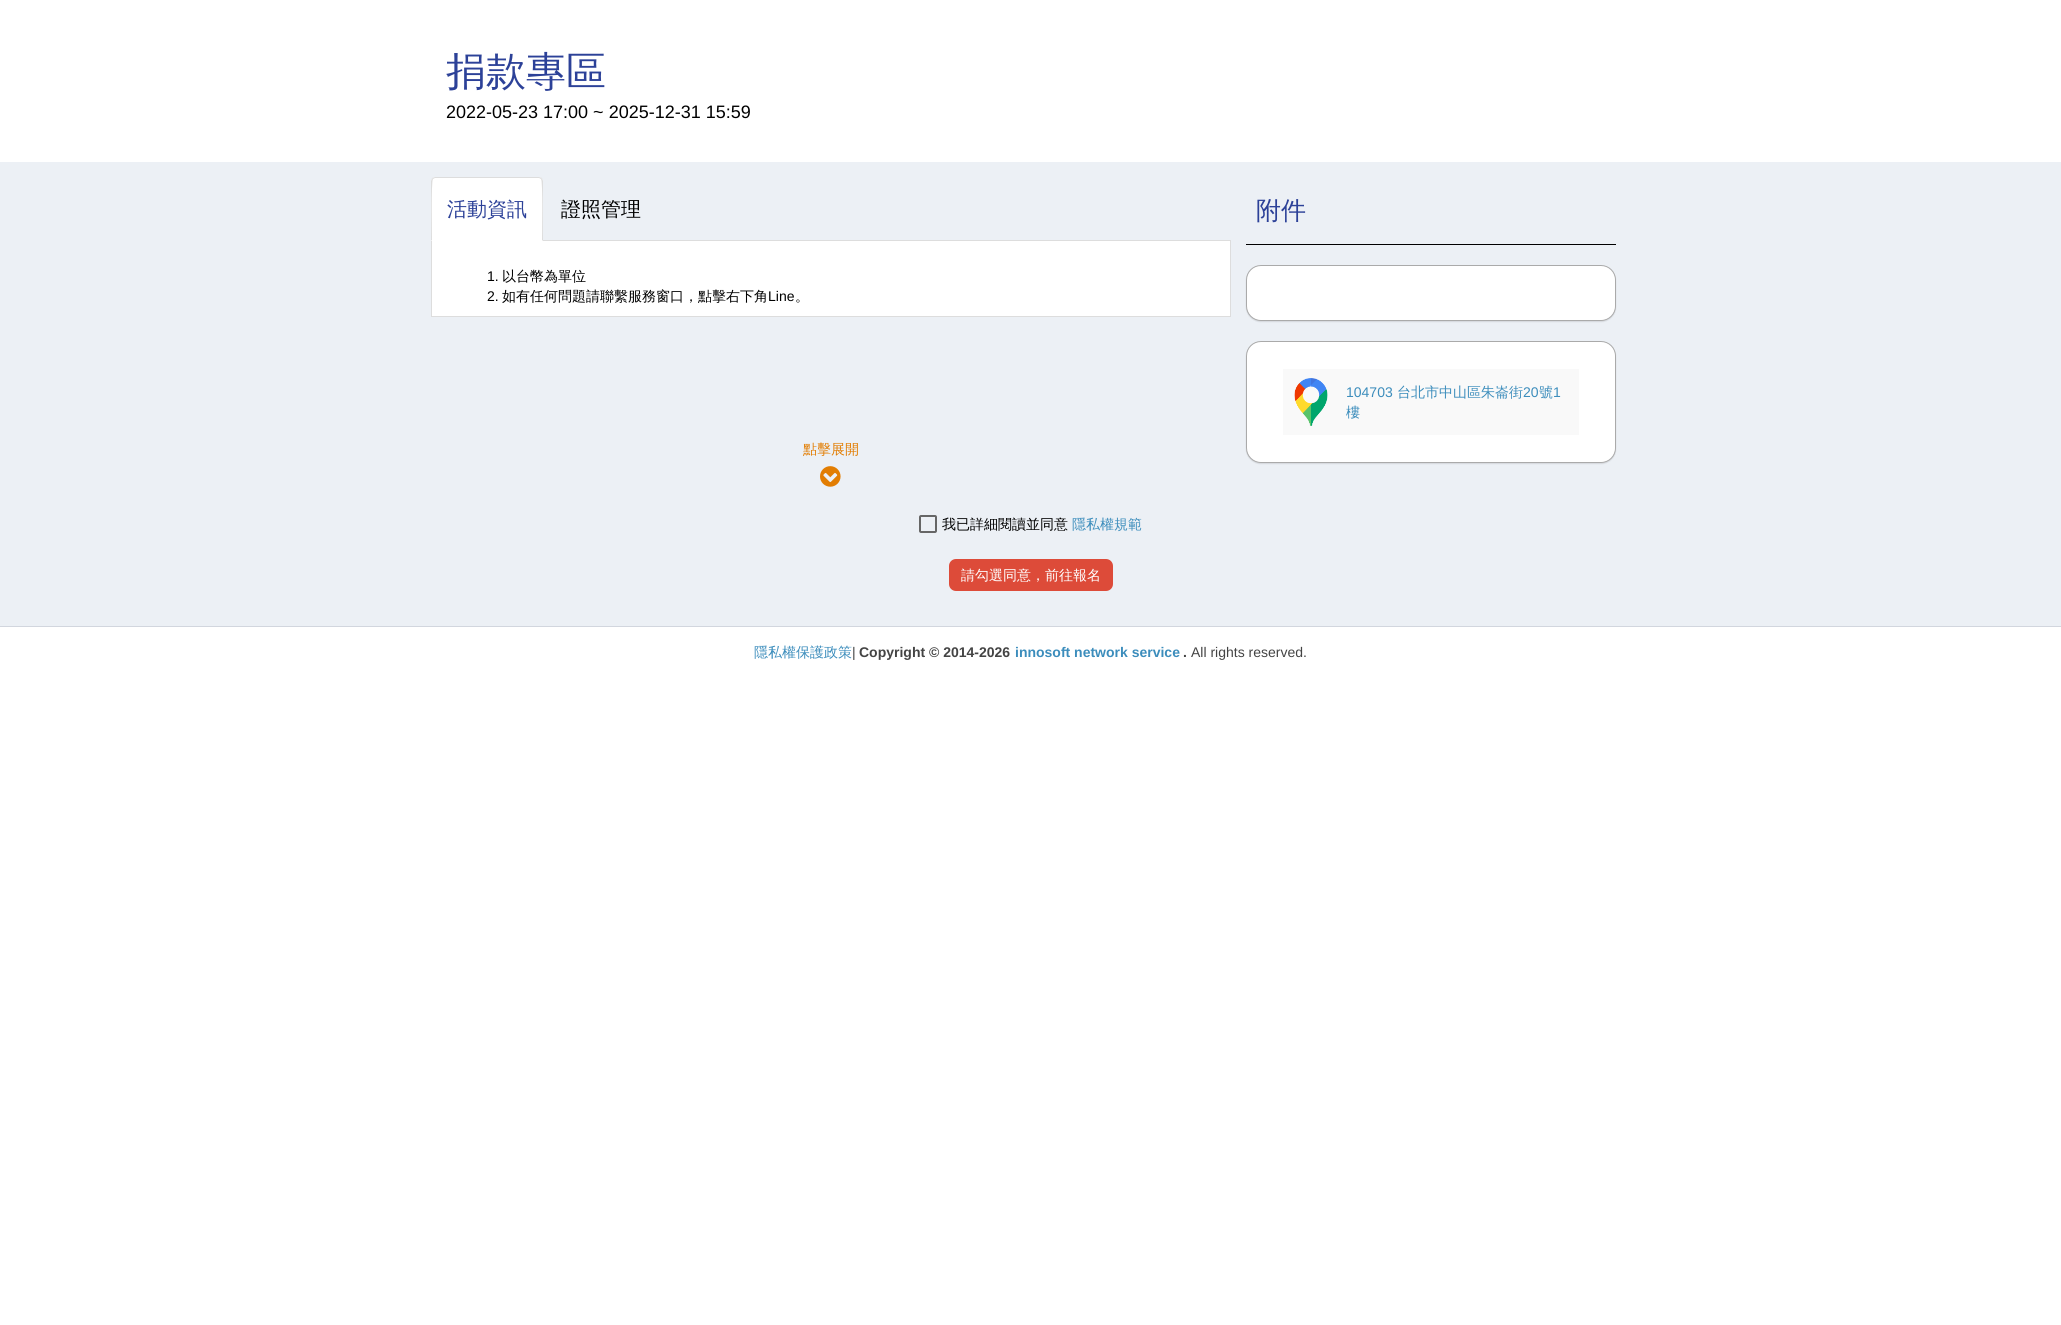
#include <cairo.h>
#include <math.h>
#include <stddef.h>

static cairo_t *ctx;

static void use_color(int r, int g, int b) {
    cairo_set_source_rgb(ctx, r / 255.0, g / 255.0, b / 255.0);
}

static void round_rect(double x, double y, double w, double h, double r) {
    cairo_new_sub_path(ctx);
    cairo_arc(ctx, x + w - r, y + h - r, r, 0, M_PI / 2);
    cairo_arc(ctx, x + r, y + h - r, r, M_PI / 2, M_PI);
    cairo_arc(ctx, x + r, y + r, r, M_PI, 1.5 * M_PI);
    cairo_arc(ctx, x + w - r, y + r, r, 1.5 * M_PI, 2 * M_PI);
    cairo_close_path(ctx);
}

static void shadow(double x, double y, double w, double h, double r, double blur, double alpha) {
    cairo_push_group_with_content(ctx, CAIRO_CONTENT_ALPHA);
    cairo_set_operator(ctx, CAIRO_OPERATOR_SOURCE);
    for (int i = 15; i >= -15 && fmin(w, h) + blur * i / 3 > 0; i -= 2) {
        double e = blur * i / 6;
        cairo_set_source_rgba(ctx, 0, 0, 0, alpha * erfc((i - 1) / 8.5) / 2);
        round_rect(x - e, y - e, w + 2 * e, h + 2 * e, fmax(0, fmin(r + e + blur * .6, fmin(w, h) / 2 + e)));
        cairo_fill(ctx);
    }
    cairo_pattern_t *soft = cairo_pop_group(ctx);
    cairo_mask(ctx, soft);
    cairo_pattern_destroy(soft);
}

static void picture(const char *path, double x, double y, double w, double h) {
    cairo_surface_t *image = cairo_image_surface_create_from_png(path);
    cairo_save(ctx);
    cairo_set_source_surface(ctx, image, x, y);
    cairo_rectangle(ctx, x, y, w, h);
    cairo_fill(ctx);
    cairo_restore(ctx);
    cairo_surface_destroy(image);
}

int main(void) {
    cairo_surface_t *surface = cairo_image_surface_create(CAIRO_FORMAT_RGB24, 2061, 1325);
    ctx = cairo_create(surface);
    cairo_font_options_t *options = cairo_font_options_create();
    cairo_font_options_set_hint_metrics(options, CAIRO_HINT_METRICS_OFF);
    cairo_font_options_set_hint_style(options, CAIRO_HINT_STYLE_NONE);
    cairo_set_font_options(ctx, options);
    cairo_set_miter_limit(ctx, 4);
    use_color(255, 255, 255);
    cairo_paint(ctx);
    use_color(236, 240, 245);
    cairo_rectangle(ctx, 0, 162, 2061, 464);
    cairo_fill(ctx);
    cairo_select_font_face(ctx, "WenQuanYi Zen Hei Medium", CAIRO_FONT_SLANT_NORMAL, CAIRO_FONT_WEIGHT_NORMAL);
    cairo_set_font_size(ctx, 40);
    use_color(44, 65, 152);
    cairo_move_to(ctx, 446, 85);
    cairo_show_text(ctx, "捐款專區");
    cairo_select_font_face(ctx, "Liberation Sans", CAIRO_FONT_SLANT_NORMAL, CAIRO_FONT_WEIGHT_NORMAL);
    cairo_set_font_size(ctx, 18);
    use_color(0, 0, 0);
    cairo_move_to(ctx, 446, 118);
    cairo_show_text(ctx, "2022-05-23 17:00 ~ 2025-12-31 15:59");
    use_color(221, 221, 221);
    cairo_rectangle(ctx, 543, 240, 688, 1);
    cairo_fill(ctx);
    use_color(255, 255, 255);
    cairo_new_path(ctx);
    cairo_move_to(ctx, 435, 177);
    cairo_line_to(ctx, 539, 177);
    cairo_curve_to(ctx, 541, 177, 543, 179, 543, 181);
    cairo_line_to(ctx, 543, 241);
    cairo_line_to(ctx, 431, 241);
    cairo_line_to(ctx, 431, 181);
    cairo_curve_to(ctx, 431, 179, 433, 177, 435, 177);
    cairo_close_path(ctx);
    cairo_fill(ctx);
    use_color(221, 221, 221);
    cairo_new_path(ctx);
    cairo_move_to(ctx, 435, 177);
    cairo_line_to(ctx, 432, 178);
    cairo_line_to(ctx, 433, 179);
    cairo_line_to(ctx, 435, 178);
    cairo_line_to(ctx, 539, 178);
    cairo_line_to(ctx, 541, 179);
    cairo_line_to(ctx, 542, 178);
    cairo_line_to(ctx, 539, 177);
    cairo_close_path(ctx);
    cairo_fill(ctx);
    cairo_new_path(ctx);
    cairo_move_to(ctx, 543, 241);
    cairo_line_to(ctx, 543, 181);
    cairo_line_to(ctx, 542, 178);
    cairo_line_to(ctx, 541, 179);
    cairo_curve_to(ctx, 543, 181, 542, 233, 542, 240);
    cairo_close_path(ctx);
    cairo_fill(ctx);
    cairo_new_path(ctx);
    cairo_move_to(ctx, 431, 241);
    cairo_line_to(ctx, 432, 240);
    cairo_curve_to(ctx, 432, 233, 431, 181, 433, 179);
    cairo_line_to(ctx, 432, 178);
    cairo_line_to(ctx, 431, 181);
    cairo_close_path(ctx);
    cairo_fill(ctx);
    cairo_select_font_face(ctx, "WenQuanYi Zen Hei Medium", CAIRO_FONT_SLANT_NORMAL, CAIRO_FONT_WEIGHT_NORMAL);
    cairo_set_font_size(ctx, 20);
    use_color(44, 65, 152);
    cairo_move_to(ctx, 447, 216);
    cairo_show_text(ctx, "活動資訊");
    use_color(0, 0, 0);
    cairo_move_to(ctx, 561, 216);
    cairo_show_text(ctx, "證照管理");
    use_color(255, 255, 255);
    cairo_rectangle(ctx, 432, 241, 798, 75);
    cairo_fill(ctx);
    use_color(221, 221, 221);
    cairo_rectangle(ctx, 1230, 241, 1, 76);
    cairo_fill(ctx);
    cairo_rectangle(ctx, 431, 316, 800, 1);
    cairo_fill(ctx);
    cairo_rectangle(ctx, 431, 241, 1, 76);
    cairo_fill(ctx);
    cairo_select_font_face(ctx, "Liberation Sans", CAIRO_FONT_SLANT_NORMAL, CAIRO_FONT_WEIGHT_NORMAL);
    cairo_set_font_size(ctx, 14);
    use_color(0, 0, 0);
    cairo_move_to(ctx, 487, 281);
    cairo_show_text(ctx, "1.");
    cairo_select_font_face(ctx, "WenQuanYi Zen Hei Medium", CAIRO_FONT_SLANT_NORMAL, CAIRO_FONT_WEIGHT_NORMAL);
    cairo_move_to(ctx, 502, 281);
    cairo_show_text(ctx, "以台幣為單位");
    cairo_select_font_face(ctx, "Liberation Sans", CAIRO_FONT_SLANT_NORMAL, CAIRO_FONT_WEIGHT_NORMAL);
    cairo_move_to(ctx, 487, 301);
    cairo_show_text(ctx, "2.");
    cairo_select_font_face(ctx, "WenQuanYi Zen Hei Medium", CAIRO_FONT_SLANT_NORMAL, CAIRO_FONT_WEIGHT_NORMAL);
    cairo_move_to(ctx, 502, 301);
    cairo_show_text(ctx, "如有任何問題請聯繫服務窗口，點擊右下角");
    cairo_select_font_face(ctx, "Liberation Sans", CAIRO_FONT_SLANT_NORMAL, CAIRO_FONT_WEIGHT_NORMAL);
    cairo_move_to(ctx, 768, 301);
    cairo_show_text(ctx, "Line");
    cairo_select_font_face(ctx, "WenQuanYi Zen Hei Medium", CAIRO_FONT_SLANT_NORMAL, CAIRO_FONT_WEIGHT_NORMAL);
    cairo_move_to(ctx, 795, 301);
    cairo_show_text(ctx, "。");
    use_color(226, 125, 2);
    cairo_move_to(ctx, 803, 454);
    cairo_show_text(ctx, "點擊展開");
    picture("img1.png", 820, 466, 21, 21);
    cairo_set_font_size(ctx, 25);
    use_color(44, 65, 152);
    cairo_move_to(ctx, 1256, 219);
    cairo_show_text(ctx, "附件");
    use_color(0, 0, 0);
    cairo_rectangle(ctx, 1246, 244, 370, 1);
    cairo_fill(ctx);
    use_color(0, 0, 0);
    shadow(1246, 266, 370, 56, 15, 0.5, 0.1);
    use_color(255, 255, 255);
    round_rect(1246.5, 265.5, 369, 55, 14.5);
    cairo_fill_preserve(ctx);
    use_color(170, 170, 170);
    cairo_set_line_width(ctx, 1);
    cairo_stroke(ctx);
    use_color(0, 0, 0);
    shadow(1246, 342, 370, 122, 15, 0.5, 0.1);
    use_color(255, 255, 255);
    round_rect(1246.5, 341.5, 369, 121, 14.5);
    cairo_fill_preserve(ctx);
    use_color(170, 170, 170);
    cairo_stroke(ctx);
    use_color(249, 249, 249);
    cairo_rectangle(ctx, 1283, 369, 296, 66);
    cairo_fill(ctx);
    picture("img2.png", 1294, 378, 34, 48);
    cairo_select_font_face(ctx, "Liberation Sans", CAIRO_FONT_SLANT_NORMAL, CAIRO_FONT_WEIGHT_NORMAL);
    cairo_set_font_size(ctx, 14);
    use_color(60, 141, 188);
    cairo_move_to(ctx, 1346, 397);
    cairo_show_text(ctx, "104703");
    cairo_select_font_face(ctx, "WenQuanYi Zen Hei Medium", CAIRO_FONT_SLANT_NORMAL, CAIRO_FONT_WEIGHT_NORMAL);
    cairo_move_to(ctx, 1397, 397);
    cairo_show_text(ctx, "台北市中山區朱崙街");
    cairo_select_font_face(ctx, "Liberation Sans", CAIRO_FONT_SLANT_NORMAL, CAIRO_FONT_WEIGHT_NORMAL);
    cairo_move_to(ctx, 1523, 397);
    cairo_show_text(ctx, "20");
    cairo_select_font_face(ctx, "WenQuanYi Zen Hei Medium", CAIRO_FONT_SLANT_NORMAL, CAIRO_FONT_WEIGHT_NORMAL);
    cairo_move_to(ctx, 1539, 397);
    cairo_show_text(ctx, "號");
    cairo_select_font_face(ctx, "Liberation Sans", CAIRO_FONT_SLANT_NORMAL, CAIRO_FONT_WEIGHT_NORMAL);
    cairo_move_to(ctx, 1553, 397);
    cairo_show_text(ctx, "1");
    cairo_select_font_face(ctx, "WenQuanYi Zen Hei Medium", CAIRO_FONT_SLANT_NORMAL, CAIRO_FONT_WEIGHT_NORMAL);
    cairo_move_to(ctx, 1346, 417);
    cairo_show_text(ctx, "樓");
    round_rect(920, 516, 16, 16, 1);
    use_color(102, 102, 102);
    cairo_set_line_width(ctx, 2);
    cairo_stroke(ctx);
    use_color(0, 0, 0);
    cairo_move_to(ctx, 942, 529);
    cairo_show_text(ctx, "我已詳細閱讀並同意");
    use_color(60, 141, 188);
    cairo_move_to(ctx, 1072, 529);
    cairo_show_text(ctx, "隱私權規範");
    use_color(221, 75, 57);
    round_rect(949, 559, 164, 32, 7);
    cairo_fill(ctx);
    use_color(255, 255, 255);
    cairo_move_to(ctx, 961, 580);
    cairo_show_text(ctx, "請勾選同意，前往報名");
    use_color(210, 214, 222);
    cairo_rectangle(ctx, 0, 626, 2061, 1);
    cairo_fill(ctx);
    use_color(60, 141, 188);
    cairo_move_to(ctx, 754, 657);
    cairo_show_text(ctx, "隱私權保護政策");
    cairo_select_font_face(ctx, "Liberation Sans", CAIRO_FONT_SLANT_NORMAL, CAIRO_FONT_WEIGHT_NORMAL);
    use_color(68, 68, 68);
    cairo_move_to(ctx, 852, 657);
    cairo_show_text(ctx, "|");
    cairo_select_font_face(ctx, "Liberation Sans", CAIRO_FONT_SLANT_NORMAL, CAIRO_FONT_WEIGHT_BOLD);
    cairo_move_to(ctx, 859, 657);
    cairo_show_text(ctx, "Copyright © 2014-2026");
    use_color(60, 141, 188);
    cairo_move_to(ctx, 1015, 657);
    cairo_show_text(ctx, "innosoft network service");
    use_color(68, 68, 68);
    cairo_move_to(ctx, 1183, 657);
    cairo_show_text(ctx, ".");
    cairo_select_font_face(ctx, "Liberation Sans", CAIRO_FONT_SLANT_NORMAL, CAIRO_FONT_WEIGHT_NORMAL);
    cairo_move_to(ctx, 1191, 657);
    cairo_show_text(ctx, "All rights reserved.");
    cairo_surface_write_to_png(surface, "result.png");
    cairo_font_options_destroy(options);
    cairo_destroy(ctx);
    cairo_surface_destroy(surface);
    return 0;
}
